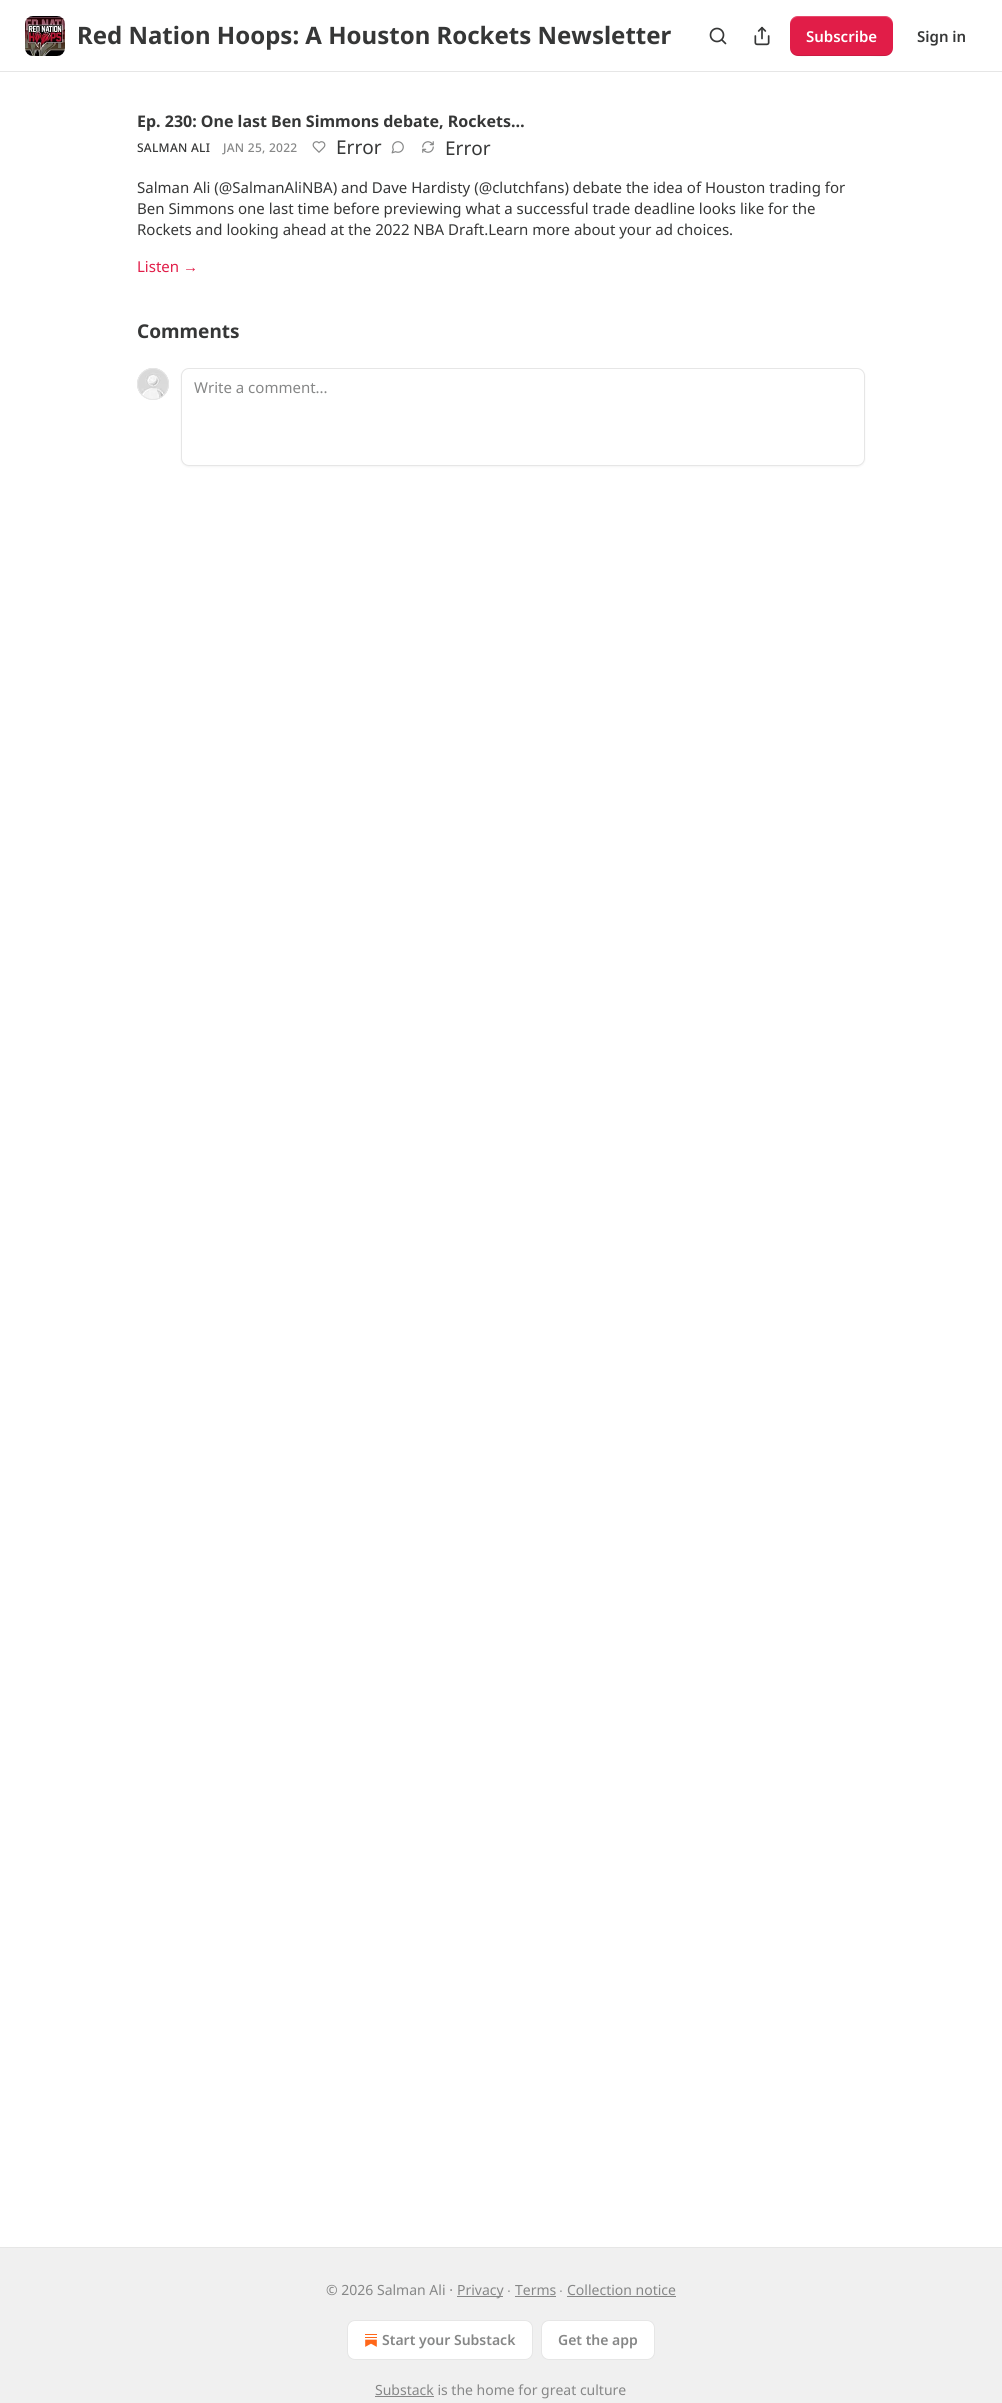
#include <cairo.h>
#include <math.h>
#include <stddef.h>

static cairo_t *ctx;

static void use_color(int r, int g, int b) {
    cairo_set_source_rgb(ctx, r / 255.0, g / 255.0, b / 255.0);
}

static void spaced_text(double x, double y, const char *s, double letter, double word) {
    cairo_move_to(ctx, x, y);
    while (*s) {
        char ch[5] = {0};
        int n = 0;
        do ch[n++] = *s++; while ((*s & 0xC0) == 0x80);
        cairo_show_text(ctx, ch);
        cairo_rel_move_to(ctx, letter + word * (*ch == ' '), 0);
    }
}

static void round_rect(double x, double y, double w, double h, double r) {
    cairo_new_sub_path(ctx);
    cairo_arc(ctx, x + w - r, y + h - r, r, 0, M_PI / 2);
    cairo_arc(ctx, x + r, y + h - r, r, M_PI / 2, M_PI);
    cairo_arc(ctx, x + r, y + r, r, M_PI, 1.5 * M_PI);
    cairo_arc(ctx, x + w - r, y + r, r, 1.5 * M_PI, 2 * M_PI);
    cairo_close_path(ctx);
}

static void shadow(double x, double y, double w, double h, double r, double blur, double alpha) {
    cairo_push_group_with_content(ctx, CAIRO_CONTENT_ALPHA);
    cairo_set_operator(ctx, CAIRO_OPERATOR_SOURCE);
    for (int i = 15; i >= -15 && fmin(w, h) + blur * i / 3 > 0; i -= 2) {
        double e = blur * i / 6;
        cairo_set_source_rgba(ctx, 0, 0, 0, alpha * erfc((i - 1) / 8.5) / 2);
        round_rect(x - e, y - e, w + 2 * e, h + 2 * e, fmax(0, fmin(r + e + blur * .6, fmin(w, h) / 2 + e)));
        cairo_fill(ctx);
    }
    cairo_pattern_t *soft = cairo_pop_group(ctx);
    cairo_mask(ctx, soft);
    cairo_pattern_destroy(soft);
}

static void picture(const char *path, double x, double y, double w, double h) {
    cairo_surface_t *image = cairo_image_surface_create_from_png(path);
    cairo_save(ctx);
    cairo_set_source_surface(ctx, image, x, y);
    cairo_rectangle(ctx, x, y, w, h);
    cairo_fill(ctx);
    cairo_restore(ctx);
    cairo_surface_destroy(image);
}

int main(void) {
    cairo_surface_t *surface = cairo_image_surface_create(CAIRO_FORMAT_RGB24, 1002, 2403);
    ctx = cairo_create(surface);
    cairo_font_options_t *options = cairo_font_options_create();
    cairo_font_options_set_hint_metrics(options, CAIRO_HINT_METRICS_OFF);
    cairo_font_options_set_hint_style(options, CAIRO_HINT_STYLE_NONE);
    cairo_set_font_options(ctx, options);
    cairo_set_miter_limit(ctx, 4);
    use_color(255, 255, 255);
    cairo_paint(ctx);
    use_color(230, 230, 230);
    cairo_rectangle(ctx, 0, 71, 1002, 1);
    cairo_fill(ctx);
    picture("img1.png", 25, 16, 40, 40);
    cairo_select_font_face(ctx, "Noto Sans", CAIRO_FONT_SLANT_NORMAL, CAIRO_FONT_WEIGHT_BOLD);
    cairo_set_font_size(ctx, 24);
    use_color(54, 55, 55);
    cairo_move_to(ctx, 77, 44);
    cairo_show_text(ctx, "Red Nation Hoops: A Houston Rockets Newsletter");
    cairo_new_path(ctx);
    cairo_arc(ctx, 717, 35, 6.5, 0, 2 * M_PI);
    cairo_set_line_width(ctx, 1.7);
    cairo_stroke(ctx);
    cairo_new_path(ctx);
    cairo_move_to(ctx, 725.5, 43.5);
    cairo_line_to(ctx, 722, 40);
    cairo_set_line_cap(ctx, CAIRO_LINE_CAP_ROUND);
    cairo_set_line_join(ctx, CAIRO_LINE_JOIN_ROUND);
    cairo_stroke(ctx);
    picture("img2.png", 754, 26, 16, 20);
    use_color(225, 29, 72);
    round_rect(790, 16, 103, 40, 8);
    cairo_fill(ctx);
    cairo_set_source_rgba(ctx, 0, 0, 0, 0.1);
    cairo_new_path(ctx);
    cairo_move_to(ctx, 790, 47);
    cairo_curve_to(ctx, 790, 59, 804, 56, 812, 56);
    cairo_line_to(ctx, 870, 56);
    cairo_curve_to(ctx, 879, 56, 893, 59, 893, 47);
    cairo_curve_to(ctx, 893, 51, 889, 55, 885, 55);
    cairo_line_to(ctx, 798, 55);
    cairo_curve_to(ctx, 794, 55, 790, 51, 790, 47);
    cairo_close_path(ctx);
    cairo_fill(ctx);
    cairo_set_source_rgba(ctx, 1, 1, 1, 0.2);
    cairo_new_path(ctx);
    cairo_move_to(ctx, 798, 17);
    cairo_line_to(ctx, 885, 17);
    cairo_curve_to(ctx, 889, 17, 893, 21, 893, 25);
    cairo_curve_to(ctx, 893, 13, 879, 16, 870, 16);
    cairo_line_to(ctx, 812, 16);
    cairo_curve_to(ctx, 804, 16, 790, 13, 790, 25);
    cairo_curve_to(ctx, 790, 21, 794, 17, 798, 17);
    cairo_close_path(ctx);
    cairo_fill(ctx);
    cairo_select_font_face(ctx, "Noto Sans SemiBold", CAIRO_FONT_SLANT_NORMAL, CAIRO_FONT_WEIGHT_NORMAL);
    cairo_set_font_size(ctx, 15);
    use_color(255, 255, 255);
    cairo_move_to(ctx, 806, 42);
    cairo_show_text(ctx, "Subscribe");
    use_color(54, 55, 55);
    cairo_move_to(ctx, 917, 42);
    cairo_show_text(ctx, "Sign in");
    cairo_select_font_face(ctx, "Noto Sans", CAIRO_FONT_SLANT_NORMAL, CAIRO_FONT_WEIGHT_BOLD);
    cairo_set_font_size(ctx, 16);
    cairo_move_to(ctx, 137, 127);
    cairo_show_text(ctx, "Ep. 230: One last Ben Simmons debate, Rockets…");
    cairo_select_font_face(ctx, "Noto Sans Medium", CAIRO_FONT_SLANT_NORMAL, CAIRO_FONT_WEIGHT_NORMAL);
    cairo_set_font_size(ctx, 12);
    spaced_text(137, 152, "SALMAN ALI", 0.25, 0);
    use_color(134, 135, 135);
    spaced_text(223, 152, "JAN 25, 2022", 0.25, 0);
    picture("img3.png", 312, 141, 14, 12);
    cairo_select_font_face(ctx, "Noto Sans", CAIRO_FONT_SLANT_NORMAL, CAIRO_FONT_WEIGHT_NORMAL);
    cairo_set_font_size(ctx, 19);
    use_color(54, 55, 55);
    cairo_move_to(ctx, 336, 154);
    cairo_show_text(ctx, "Error");
    picture("img4.png", 391, 141, 13, 13);
    picture("img5.png", 422, 141, 12, 12);
    cairo_move_to(ctx, 445, 155);
    cairo_show_text(ctx, "Error");
    cairo_set_font_size(ctx, 15);
    cairo_move_to(ctx, 137, 193);
    cairo_show_text(ctx, "Salman Ali (@SalmanAliNBA) and Dave Hardisty (@clutchfans) debate the idea of Houston trading for");
    cairo_move_to(ctx, 137, 214);
    cairo_show_text(ctx, "Ben Simmons one last time before previewing what a successful trade deadline looks like for the");
    cairo_move_to(ctx, 137, 235);
    cairo_show_text(ctx, "Rockets and looking ahead at the 2022 NBA Draft.Learn more about your ad choices.");
    use_color(225, 29, 72);
    cairo_move_to(ctx, 137, 272);
    cairo_show_text(ctx, "Listen");
    cairo_select_font_face(ctx, "Liberation Sans", CAIRO_FONT_SLANT_NORMAL, CAIRO_FONT_WEIGHT_NORMAL);
    cairo_move_to(ctx, 183, 272);
    cairo_show_text(ctx, "→");
    cairo_select_font_face(ctx, "Noto Sans", CAIRO_FONT_SLANT_NORMAL, CAIRO_FONT_WEIGHT_BOLD);
    cairo_set_font_size(ctx, 19);
    use_color(54, 55, 55);
    cairo_move_to(ctx, 137, 338);
    cairo_show_text(ctx, "Comments");
    cairo_new_path(ctx);
    cairo_arc(ctx, 153, 384, 15.5, 0, 2 * M_PI);
    use_color(230, 230, 230);
    cairo_set_line_width(ctx, 1);
    cairo_set_line_cap(ctx, CAIRO_LINE_CAP_BUTT);
    cairo_set_line_join(ctx, CAIRO_LINE_JOIN_MITER);
    cairo_stroke(ctx);
    picture("img6.png", 137, 368, 32, 32);
    cairo_arc(ctx, 153, 384, 15.5, 0, 2 * M_PI);
    cairo_stroke(ctx);
    use_color(0, 0, 0);
    shadow(181, 369, 684, 98, 8, 1, 0.05);
    use_color(255, 255, 255);
    round_rect(181.5, 368.5, 683, 97, 7.5);
    cairo_fill_preserve(ctx);
    use_color(230, 230, 230);
    cairo_stroke(ctx);
    cairo_select_font_face(ctx, "Noto Sans", CAIRO_FONT_SLANT_NORMAL, CAIRO_FONT_WEIGHT_NORMAL);
    cairo_set_font_size(ctx, 15);
    use_color(134, 135, 135);
    cairo_move_to(ctx, 194, 393);
    cairo_show_text(ctx, "Write a comment...");
    use_color(240, 240, 240);
    cairo_rectangle(ctx, 0, 2248, 1002, 155);
    cairo_fill(ctx);
    use_color(230, 230, 230);
    cairo_rectangle(ctx, 0, 2247, 1002, 1);
    cairo_fill(ctx);
    cairo_set_font_size(ctx, 14);
    use_color(134, 135, 135);
    cairo_move_to(ctx, 326, 2295);
    cairo_show_text(ctx, "© 2026 Salman Ali ·");
    cairo_rectangle(ctx, 457, 2296, 46, 1);
    cairo_fill(ctx);
    cairo_move_to(ctx, 457, 2295);
    cairo_show_text(ctx, "Privacy");
    cairo_select_font_face(ctx, "Liberation Sans", CAIRO_FONT_SLANT_NORMAL, CAIRO_FONT_WEIGHT_NORMAL);
    cairo_move_to(ctx, 507, 2295);
    cairo_show_text(ctx, "∙");
    cairo_select_font_face(ctx, "Noto Sans", CAIRO_FONT_SLANT_NORMAL, CAIRO_FONT_WEIGHT_NORMAL);
    cairo_move_to(ctx, 515, 2295);
    cairo_show_text(ctx, "Terms");
    cairo_rectangle(ctx, 515, 2296, 41, 1);
    cairo_fill(ctx);
    cairo_select_font_face(ctx, "Liberation Sans", CAIRO_FONT_SLANT_NORMAL, CAIRO_FONT_WEIGHT_NORMAL);
    cairo_move_to(ctx, 559, 2295);
    cairo_show_text(ctx, "∙");
    cairo_select_font_face(ctx, "Noto Sans", CAIRO_FONT_SLANT_NORMAL, CAIRO_FONT_WEIGHT_NORMAL);
    cairo_move_to(ctx, 567, 2295);
    cairo_show_text(ctx, "Collection notice");
    cairo_rectangle(ctx, 567, 2296, 109, 1);
    cairo_fill(ctx);
    use_color(255, 255, 255);
    round_rect(347.5, 2320.5, 185, 39, 7.5);
    cairo_fill_preserve(ctx);
    use_color(230, 230, 230);
    cairo_stroke(ctx);
    picture("img7.png", 365, 2334, 12, 13);
    cairo_select_font_face(ctx, "Noto Sans SemiBold", CAIRO_FONT_SLANT_NORMAL, CAIRO_FONT_WEIGHT_NORMAL);
    use_color(134, 135, 135);
    cairo_move_to(ctx, 382, 2345);
    cairo_show_text(ctx, "Start your Substack");
    use_color(255, 255, 255);
    round_rect(541.5, 2320.5, 113, 39, 7.5);
    cairo_fill_preserve(ctx);
    use_color(230, 230, 230);
    cairo_stroke(ctx);
    use_color(134, 135, 135);
    cairo_move_to(ctx, 558, 2345);
    cairo_show_text(ctx, "Get the app");
    cairo_rectangle(ctx, 375, 2396, 59, 1);
    cairo_fill(ctx);
    cairo_select_font_face(ctx, "Noto Sans", CAIRO_FONT_SLANT_NORMAL, CAIRO_FONT_WEIGHT_NORMAL);
    cairo_move_to(ctx, 375, 2395);
    cairo_show_text(ctx, "Substack is the home for great culture");
    cairo_surface_write_to_png(surface, "result.png");
    cairo_font_options_destroy(options);
    cairo_destroy(ctx);
    cairo_surface_destroy(surface);
    return 0;
}
